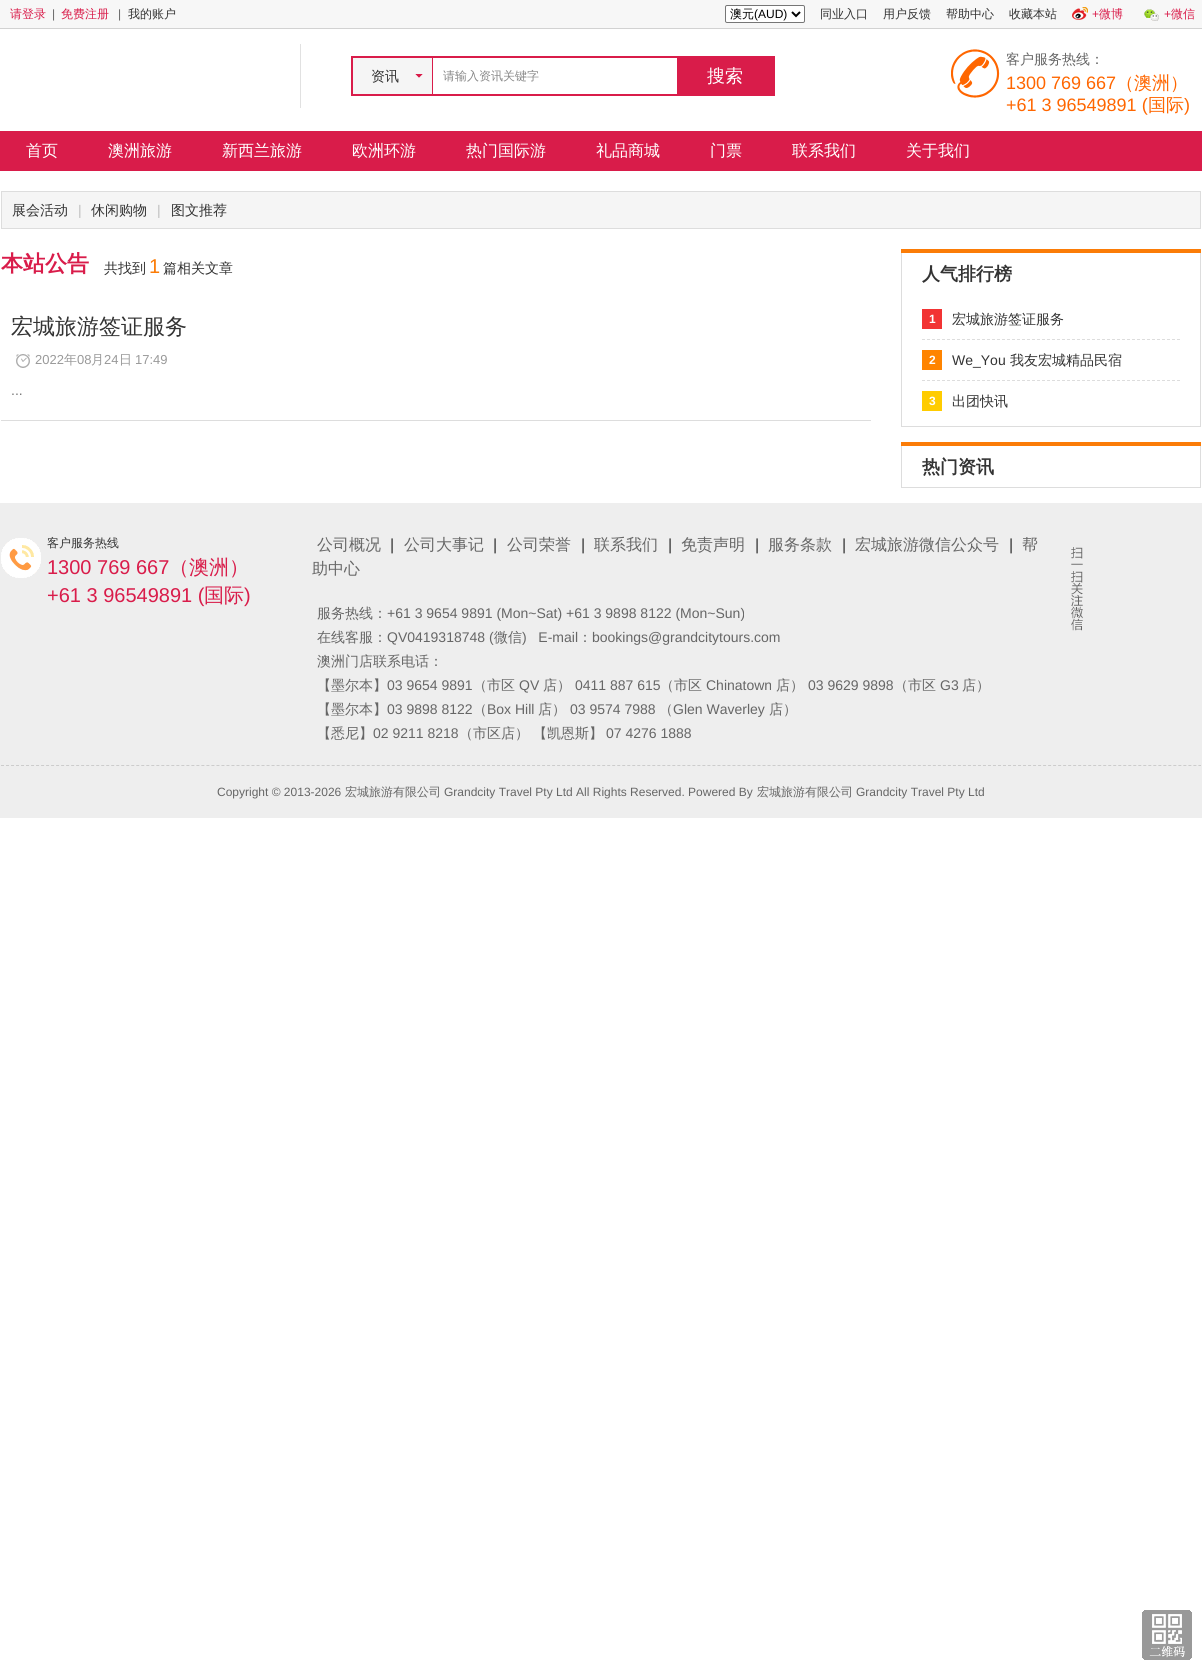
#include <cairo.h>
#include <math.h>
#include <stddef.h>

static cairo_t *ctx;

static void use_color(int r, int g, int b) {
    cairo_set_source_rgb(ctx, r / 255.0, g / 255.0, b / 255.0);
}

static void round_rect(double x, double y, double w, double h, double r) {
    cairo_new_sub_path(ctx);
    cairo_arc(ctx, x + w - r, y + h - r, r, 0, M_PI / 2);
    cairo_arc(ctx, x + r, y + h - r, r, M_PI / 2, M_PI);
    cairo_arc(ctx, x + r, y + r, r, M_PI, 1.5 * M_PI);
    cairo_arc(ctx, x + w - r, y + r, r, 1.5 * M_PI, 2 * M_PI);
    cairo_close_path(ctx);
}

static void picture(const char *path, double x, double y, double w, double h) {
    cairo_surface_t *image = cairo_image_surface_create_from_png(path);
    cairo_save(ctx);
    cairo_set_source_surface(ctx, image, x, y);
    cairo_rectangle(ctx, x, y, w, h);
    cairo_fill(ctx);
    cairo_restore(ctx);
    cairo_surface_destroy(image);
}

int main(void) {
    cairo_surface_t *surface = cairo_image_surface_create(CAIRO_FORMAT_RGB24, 1202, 1670);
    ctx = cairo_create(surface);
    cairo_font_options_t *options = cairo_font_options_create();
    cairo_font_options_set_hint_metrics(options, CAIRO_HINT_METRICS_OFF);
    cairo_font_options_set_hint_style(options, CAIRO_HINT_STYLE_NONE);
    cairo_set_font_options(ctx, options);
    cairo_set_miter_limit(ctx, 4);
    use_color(255, 255, 255);
    cairo_paint(ctx);
    use_color(247, 247, 247);
    cairo_rectangle(ctx, 0, 0, 1202, 28);
    cairo_fill(ctx);
    use_color(210, 210, 210);
    cairo_rectangle(ctx, 0, 28, 1202, 1);
    cairo_fill(ctx);
    cairo_select_font_face(ctx, "WenQuanYi Zen Hei Medium", CAIRO_FONT_SLANT_NORMAL, CAIRO_FONT_WEIGHT_NORMAL);
    cairo_set_font_size(ctx, 12);
    use_color(217, 28, 74);
    cairo_move_to(ctx, 10, 18);
    cairo_show_text(ctx, "请登录");
    cairo_select_font_face(ctx, "Liberation Sans", CAIRO_FONT_SLANT_NORMAL, CAIRO_FONT_WEIGHT_NORMAL);
    use_color(102, 102, 102);
    cairo_move_to(ctx, 52, 18);
    cairo_show_text(ctx, "|");
    cairo_select_font_face(ctx, "WenQuanYi Zen Hei Medium", CAIRO_FONT_SLANT_NORMAL, CAIRO_FONT_WEIGHT_NORMAL);
    use_color(217, 28, 74);
    cairo_move_to(ctx, 61, 18);
    cairo_show_text(ctx, "免费注册");
    cairo_select_font_face(ctx, "Liberation Sans", CAIRO_FONT_SLANT_NORMAL, CAIRO_FONT_WEIGHT_NORMAL);
    use_color(102, 102, 102);
    cairo_move_to(ctx, 118, 18);
    cairo_show_text(ctx, "|");
    cairo_select_font_face(ctx, "WenQuanYi Zen Hei Medium", CAIRO_FONT_SLANT_NORMAL, CAIRO_FONT_WEIGHT_NORMAL);
    use_color(51, 51, 51);
    cairo_move_to(ctx, 128, 18);
    cairo_show_text(ctx, "我的账户");
    use_color(255, 255, 255);
    round_rect(725.5, 5.5, 79, 17, 1.5);
    cairo_fill_preserve(ctx);
    use_color(118, 118, 118);
    cairo_set_line_width(ctx, 1);
    cairo_stroke(ctx);
    cairo_new_path(ctx);
    cairo_move_to(ctx, 792, 12);
    cairo_line_to(ctx, 796, 16);
    cairo_line_to(ctx, 800, 12);
    use_color(0, 0, 0);
    cairo_set_line_width(ctx, 2);
    cairo_stroke(ctx);
    cairo_move_to(ctx, 730, 18);
    cairo_show_text(ctx, "澳元");
    cairo_select_font_face(ctx, "Liberation Sans", CAIRO_FONT_SLANT_NORMAL, CAIRO_FONT_WEIGHT_NORMAL);
    cairo_move_to(ctx, 754, 18);
    cairo_show_text(ctx, "(AUD)");
    cairo_select_font_face(ctx, "WenQuanYi Zen Hei Medium", CAIRO_FONT_SLANT_NORMAL, CAIRO_FONT_WEIGHT_NORMAL);
    use_color(51, 51, 51);
    cairo_move_to(ctx, 820, 18);
    cairo_show_text(ctx, "同业入口");
    cairo_move_to(ctx, 883, 18);
    cairo_show_text(ctx, "用户反馈");
    cairo_move_to(ctx, 946, 18);
    cairo_show_text(ctx, "帮助中心");
    cairo_move_to(ctx, 1009, 18);
    cairo_show_text(ctx, "收藏本站");
    picture("img1.png", 1072, 7, 16, 13);
    cairo_select_font_face(ctx, "Liberation Sans", CAIRO_FONT_SLANT_NORMAL, CAIRO_FONT_WEIGHT_NORMAL);
    use_color(217, 28, 74);
    cairo_move_to(ctx, 1092, 18);
    cairo_show_text(ctx, "+");
    cairo_select_font_face(ctx, "WenQuanYi Zen Hei Medium", CAIRO_FONT_SLANT_NORMAL, CAIRO_FONT_WEIGHT_NORMAL);
    cairo_move_to(ctx, 1099, 18);
    cairo_show_text(ctx, "微博");
    picture("img2.png", 1144, 9, 15, 12);
    cairo_select_font_face(ctx, "Liberation Sans", CAIRO_FONT_SLANT_NORMAL, CAIRO_FONT_WEIGHT_NORMAL);
    cairo_move_to(ctx, 1164, 18);
    cairo_show_text(ctx, "+");
    cairo_select_font_face(ctx, "WenQuanYi Zen Hei Medium", CAIRO_FONT_SLANT_NORMAL, CAIRO_FONT_WEIGHT_NORMAL);
    cairo_move_to(ctx, 1171, 18);
    cairo_show_text(ctx, "微信");
    use_color(225, 225, 225);
    cairo_rectangle(ctx, 300, 44, 1, 64);
    cairo_fill(ctx);
    cairo_rectangle(ctx, 352, 57, 422, 38);
    use_color(217, 28, 74);
    cairo_stroke(ctx);
    use_color(245, 245, 245);
    cairo_rectangle(ctx, 353, 58, 79, 36);
    cairo_fill(ctx);
    use_color(217, 28, 74);
    cairo_rectangle(ctx, 432, 58, 1, 36);
    cairo_fill(ctx);
    cairo_set_font_size(ctx, 14);
    use_color(51, 51, 51);
    cairo_move_to(ctx, 371, 81);
    cairo_show_text(ctx, "资讯");
    use_color(217, 28, 74);
    cairo_new_path(ctx);
    cairo_move_to(ctx, 415, 74);
    cairo_line_to(ctx, 423, 74);
    cairo_line_to(ctx, 419, 78);
    cairo_close_path(ctx);
    cairo_fill(ctx);
    use_color(245, 245, 245);
    cairo_new_path(ctx);
    cairo_move_to(ctx, 423, 74);
    cairo_line_to(ctx, 423, 82);
    cairo_line_to(ctx, 419, 78);
    cairo_close_path(ctx);
    cairo_move_to(ctx, 415, 82);
    cairo_line_to(ctx, 415, 74);
    cairo_line_to(ctx, 419, 78);
    cairo_close_path(ctx);
    cairo_fill(ctx);
    cairo_set_font_size(ctx, 12);
    use_color(136, 136, 136);
    cairo_move_to(ctx, 443, 80);
    cairo_show_text(ctx, "请输入资讯关键字");
    use_color(217, 28, 74);
    cairo_rectangle(ctx, 677, 58, 96, 36);
    cairo_fill(ctx);
    cairo_set_font_size(ctx, 18);
    use_color(255, 255, 255);
    cairo_move_to(ctx, 707, 82);
    cairo_show_text(ctx, "搜索");
    picture("img3.png", 951, 49, 49, 49);
    cairo_set_font_size(ctx, 14);
    use_color(102, 102, 102);
    cairo_move_to(ctx, 1006, 64);
    cairo_show_text(ctx, "客户服务热线：");
    cairo_select_font_face(ctx, "Liberation Sans", CAIRO_FONT_SLANT_NORMAL, CAIRO_FONT_WEIGHT_NORMAL);
    cairo_set_font_size(ctx, 18);
    use_color(255, 102, 0);
    cairo_move_to(ctx, 1006, 89);
    cairo_show_text(ctx, "1300 769 667");
    cairo_select_font_face(ctx, "WenQuanYi Zen Hei Medium", CAIRO_FONT_SLANT_NORMAL, CAIRO_FONT_WEIGHT_NORMAL);
    cairo_move_to(ctx, 1116, 89);
    cairo_show_text(ctx, "（澳洲）");
    cairo_select_font_face(ctx, "Liberation Sans", CAIRO_FONT_SLANT_NORMAL, CAIRO_FONT_WEIGHT_NORMAL);
    cairo_move_to(ctx, 1006, 111);
    cairo_show_text(ctx, "+61 3 96549891 (");
    cairo_select_font_face(ctx, "WenQuanYi Zen Hei Medium", CAIRO_FONT_SLANT_NORMAL, CAIRO_FONT_WEIGHT_NORMAL);
    cairo_move_to(ctx, 1148, 111);
    cairo_show_text(ctx, "国际");
    cairo_select_font_face(ctx, "Liberation Sans", CAIRO_FONT_SLANT_NORMAL, CAIRO_FONT_WEIGHT_NORMAL);
    cairo_move_to(ctx, 1184, 111);
    cairo_show_text(ctx, ")");
    use_color(217, 28, 74);
    cairo_rectangle(ctx, 0, 131, 1202, 40);
    cairo_fill(ctx);
    cairo_select_font_face(ctx, "WenQuanYi Zen Hei Medium", CAIRO_FONT_SLANT_NORMAL, CAIRO_FONT_WEIGHT_NORMAL);
    cairo_set_font_size(ctx, 16);
    use_color(255, 255, 255);
    cairo_move_to(ctx, 26, 156);
    cairo_show_text(ctx, "首页");
    cairo_move_to(ctx, 108, 156);
    cairo_show_text(ctx, "澳洲旅游");
    cairo_move_to(ctx, 222, 156);
    cairo_show_text(ctx, "新西兰旅游");
    cairo_move_to(ctx, 352, 156);
    cairo_show_text(ctx, "欧洲环游");
    cairo_move_to(ctx, 466, 156);
    cairo_show_text(ctx, "热门国际游");
    cairo_move_to(ctx, 596, 156);
    cairo_show_text(ctx, "礼品商城");
    cairo_move_to(ctx, 710, 156);
    cairo_show_text(ctx, "门票");
    cairo_move_to(ctx, 792, 156);
    cairo_show_text(ctx, "联系我们");
    cairo_move_to(ctx, 906, 156);
    cairo_show_text(ctx, "关于我们");
    use_color(245, 245, 245);
    cairo_rectangle(ctx, 1.5, 191.5, 1199, 37);
    cairo_fill_preserve(ctx);
    use_color(221, 221, 221);
    cairo_set_line_width(ctx, 1);
    cairo_stroke(ctx);
    cairo_set_font_size(ctx, 14);
    use_color(51, 51, 51);
    cairo_move_to(ctx, 12, 215);
    cairo_show_text(ctx, "展会活动");
    cairo_select_font_face(ctx, "Liberation Sans", CAIRO_FONT_SLANT_NORMAL, CAIRO_FONT_WEIGHT_NORMAL);
    use_color(190, 190, 190);
    cairo_move_to(ctx, 78, 215);
    cairo_show_text(ctx, "|");
    cairo_select_font_face(ctx, "WenQuanYi Zen Hei Medium", CAIRO_FONT_SLANT_NORMAL, CAIRO_FONT_WEIGHT_NORMAL);
    use_color(51, 51, 51);
    cairo_move_to(ctx, 91, 215);
    cairo_show_text(ctx, "休闲购物");
    cairo_select_font_face(ctx, "Liberation Sans", CAIRO_FONT_SLANT_NORMAL, CAIRO_FONT_WEIGHT_NORMAL);
    use_color(190, 190, 190);
    cairo_move_to(ctx, 157, 215);
    cairo_show_text(ctx, "|");
    cairo_select_font_face(ctx, "WenQuanYi Zen Hei Medium", CAIRO_FONT_SLANT_NORMAL, CAIRO_FONT_WEIGHT_NORMAL);
    use_color(51, 51, 51);
    cairo_move_to(ctx, 171, 215);
    cairo_show_text(ctx, "图文推荐");
    cairo_select_font_face(ctx, "WenQuanYi Zen Hei", CAIRO_FONT_SLANT_NORMAL, CAIRO_FONT_WEIGHT_BOLD);
    cairo_set_font_size(ctx, 22);
    use_color(217, 28, 74);
    cairo_move_to(ctx, 1, 271);
    cairo_show_text(ctx, "本站公告");
    cairo_select_font_face(ctx, "WenQuanYi Zen Hei Medium", CAIRO_FONT_SLANT_NORMAL, CAIRO_FONT_WEIGHT_NORMAL);
    cairo_set_font_size(ctx, 14);
    use_color(51, 51, 51);
    cairo_move_to(ctx, 104, 273);
    cairo_show_text(ctx, "共找到");
    cairo_select_font_face(ctx, "Liberation Sans", CAIRO_FONT_SLANT_NORMAL, CAIRO_FONT_WEIGHT_NORMAL);
    cairo_set_font_size(ctx, 20);
    use_color(251, 124, 7);
    cairo_move_to(ctx, 149, 273);
    cairo_show_text(ctx, "1");
    cairo_select_font_face(ctx, "WenQuanYi Zen Hei Medium", CAIRO_FONT_SLANT_NORMAL, CAIRO_FONT_WEIGHT_NORMAL);
    cairo_set_font_size(ctx, 14);
    use_color(51, 51, 51);
    cairo_move_to(ctx, 163, 273);
    cairo_show_text(ctx, "篇相关文章");
    use_color(221, 221, 221);
    cairo_rectangle(ctx, 1, 420, 870, 1);
    cairo_fill(ctx);
    cairo_set_font_size(ctx, 22);
    use_color(51, 51, 51);
    cairo_move_to(ctx, 11, 334);
    cairo_show_text(ctx, "宏城旅游签证服务");
    picture("img4.png", 16, 354, 14, 14);
    cairo_select_font_face(ctx, "Liberation Sans", CAIRO_FONT_SLANT_NORMAL, CAIRO_FONT_WEIGHT_NORMAL);
    cairo_set_font_size(ctx, 13);
    use_color(153, 153, 153);
    cairo_move_to(ctx, 35, 364);
    cairo_show_text(ctx, "2022");
    cairo_select_font_face(ctx, "WenQuanYi Zen Hei Medium", CAIRO_FONT_SLANT_NORMAL, CAIRO_FONT_WEIGHT_NORMAL);
    cairo_move_to(ctx, 64, 364);
    cairo_show_text(ctx, "年");
    cairo_select_font_face(ctx, "Liberation Sans", CAIRO_FONT_SLANT_NORMAL, CAIRO_FONT_WEIGHT_NORMAL);
    cairo_move_to(ctx, 77, 364);
    cairo_show_text(ctx, "08");
    cairo_select_font_face(ctx, "WenQuanYi Zen Hei Medium", CAIRO_FONT_SLANT_NORMAL, CAIRO_FONT_WEIGHT_NORMAL);
    cairo_move_to(ctx, 91, 364);
    cairo_show_text(ctx, "月");
    cairo_select_font_face(ctx, "Liberation Sans", CAIRO_FONT_SLANT_NORMAL, CAIRO_FONT_WEIGHT_NORMAL);
    cairo_move_to(ctx, 104, 364);
    cairo_show_text(ctx, "24");
    cairo_select_font_face(ctx, "WenQuanYi Zen Hei Medium", CAIRO_FONT_SLANT_NORMAL, CAIRO_FONT_WEIGHT_NORMAL);
    cairo_move_to(ctx, 119, 364);
    cairo_show_text(ctx, "日");
    cairo_select_font_face(ctx, "Liberation Sans", CAIRO_FONT_SLANT_NORMAL, CAIRO_FONT_WEIGHT_NORMAL);
    cairo_move_to(ctx, 135, 364);
    cairo_show_text(ctx, "17:49");
    cairo_set_font_size(ctx, 14);
    use_color(119, 119, 119);
    cairo_move_to(ctx, 11, 395);
    cairo_show_text(ctx, "...");
    use_color(251, 124, 7);
    cairo_rectangle(ctx, 901, 249, 300, 4);
    cairo_fill(ctx);
    use_color(221, 221, 221);
    cairo_rectangle(ctx, 1200, 253, 1, 174);
    cairo_fill(ctx);
    cairo_rectangle(ctx, 901, 253, 1, 36);
    cairo_fill(ctx);
    cairo_select_font_face(ctx, "WenQuanYi Zen Hei", CAIRO_FONT_SLANT_NORMAL, CAIRO_FONT_WEIGHT_BOLD);
    cairo_set_font_size(ctx, 18);
    use_color(51, 51, 51);
    cairo_move_to(ctx, 922, 280);
    cairo_show_text(ctx, "人气排行榜");
    use_color(221, 221, 221);
    cairo_rectangle(ctx, 901, 426, 300, 1);
    cairo_fill(ctx);
    cairo_rectangle(ctx, 901, 289, 1, 138);
    cairo_fill(ctx);
    cairo_new_path(ctx);
    cairo_move_to(ctx, 922, 339.5);
    cairo_line_to(ctx, 1180, 339.5);
    cairo_set_dash(ctx, (double[]){3, 2}, 2, 0);
    cairo_stroke(ctx);
    use_color(242, 52, 52);
    cairo_rectangle(ctx, 922, 309, 20, 20);
    cairo_fill(ctx);
    cairo_select_font_face(ctx, "Liberation Sans", CAIRO_FONT_SLANT_NORMAL, CAIRO_FONT_WEIGHT_BOLD);
    cairo_set_font_size(ctx, 12);
    use_color(255, 255, 255);
    cairo_move_to(ctx, 929, 323);
    cairo_show_text(ctx, "1");
    cairo_select_font_face(ctx, "WenQuanYi Zen Hei Medium", CAIRO_FONT_SLANT_NORMAL, CAIRO_FONT_WEIGHT_NORMAL);
    cairo_set_font_size(ctx, 14);
    use_color(51, 51, 51);
    cairo_move_to(ctx, 952, 324);
    cairo_show_text(ctx, "宏城旅游签证服务");
    cairo_new_path(ctx);
    cairo_move_to(ctx, 922, 380.5);
    cairo_line_to(ctx, 1180, 380.5);
    use_color(221, 221, 221);
    cairo_stroke(ctx);
    use_color(255, 132, 0);
    cairo_rectangle(ctx, 922, 350, 20, 20);
    cairo_fill(ctx);
    cairo_select_font_face(ctx, "Liberation Sans", CAIRO_FONT_SLANT_NORMAL, CAIRO_FONT_WEIGHT_BOLD);
    cairo_set_font_size(ctx, 12);
    use_color(255, 255, 255);
    cairo_move_to(ctx, 929, 364);
    cairo_show_text(ctx, "2");
    cairo_select_font_face(ctx, "Liberation Sans", CAIRO_FONT_SLANT_NORMAL, CAIRO_FONT_WEIGHT_NORMAL);
    cairo_set_font_size(ctx, 14);
    use_color(51, 51, 51);
    cairo_move_to(ctx, 952, 365);
    cairo_show_text(ctx, "We_You");
    cairo_select_font_face(ctx, "WenQuanYi Zen Hei Medium", CAIRO_FONT_SLANT_NORMAL, CAIRO_FONT_WEIGHT_NORMAL);
    cairo_move_to(ctx, 1010, 365);
    cairo_show_text(ctx, "我友宏城精品民宿");
    use_color(255, 204, 0);
    cairo_rectangle(ctx, 922, 391, 20, 20);
    cairo_fill(ctx);
    cairo_select_font_face(ctx, "Liberation Sans", CAIRO_FONT_SLANT_NORMAL, CAIRO_FONT_WEIGHT_BOLD);
    cairo_set_font_size(ctx, 12);
    use_color(255, 255, 255);
    cairo_move_to(ctx, 929, 405);
    cairo_show_text(ctx, "3");
    cairo_select_font_face(ctx, "WenQuanYi Zen Hei Medium", CAIRO_FONT_SLANT_NORMAL, CAIRO_FONT_WEIGHT_NORMAL);
    cairo_set_font_size(ctx, 14);
    use_color(51, 51, 51);
    cairo_move_to(ctx, 952, 406);
    cairo_show_text(ctx, "出团快讯");
    use_color(251, 124, 7);
    cairo_rectangle(ctx, 901, 442, 300, 4);
    cairo_fill(ctx);
    use_color(221, 221, 221);
    cairo_rectangle(ctx, 1200, 446, 1, 42);
    cairo_fill(ctx);
    cairo_rectangle(ctx, 901, 446, 1, 36);
    cairo_fill(ctx);
    cairo_select_font_face(ctx, "WenQuanYi Zen Hei", CAIRO_FONT_SLANT_NORMAL, CAIRO_FONT_WEIGHT_BOLD);
    cairo_set_font_size(ctx, 18);
    use_color(51, 51, 51);
    cairo_move_to(ctx, 922, 473);
    cairo_show_text(ctx, "热门资讯");
    use_color(221, 221, 221);
    cairo_rectangle(ctx, 901, 487, 300, 1);
    cairo_fill(ctx);
    cairo_rectangle(ctx, 901, 482, 1, 6);
    cairo_fill(ctx);
    use_color(238, 238, 238);
    cairo_rectangle(ctx, 0, 503, 1202, 315);
    cairo_fill(ctx);
    picture("img5.png", 1, 538, 40, 40);
    cairo_select_font_face(ctx, "WenQuanYi Zen Hei Medium", CAIRO_FONT_SLANT_NORMAL, CAIRO_FONT_WEIGHT_NORMAL);
    cairo_set_font_size(ctx, 12);
    use_color(51, 51, 51);
    cairo_move_to(ctx, 47, 547);
    cairo_show_text(ctx, "客户服务热线");
    cairo_select_font_face(ctx, "Liberation Sans", CAIRO_FONT_SLANT_NORMAL, CAIRO_FONT_WEIGHT_NORMAL);
    cairo_set_font_size(ctx, 20);
    use_color(217, 28, 74);
    cairo_move_to(ctx, 47, 574);
    cairo_show_text(ctx, "1300 769 667");
    cairo_select_font_face(ctx, "WenQuanYi Zen Hei Medium", CAIRO_FONT_SLANT_NORMAL, CAIRO_FONT_WEIGHT_NORMAL);
    cairo_move_to(ctx, 169, 574);
    cairo_show_text(ctx, "（澳洲）");
    cairo_select_font_face(ctx, "Liberation Sans", CAIRO_FONT_SLANT_NORMAL, CAIRO_FONT_WEIGHT_NORMAL);
    cairo_move_to(ctx, 47, 602);
    cairo_show_text(ctx, "+61 3 96549891 (");
    cairo_select_font_face(ctx, "WenQuanYi Zen Hei Medium", CAIRO_FONT_SLANT_NORMAL, CAIRO_FONT_WEIGHT_NORMAL);
    cairo_move_to(ctx, 204, 602);
    cairo_show_text(ctx, "国际");
    cairo_select_font_face(ctx, "Liberation Sans", CAIRO_FONT_SLANT_NORMAL, CAIRO_FONT_WEIGHT_NORMAL);
    cairo_move_to(ctx, 244, 602);
    cairo_show_text(ctx, ")");
    cairo_select_font_face(ctx, "WenQuanYi Zen Hei Medium", CAIRO_FONT_SLANT_NORMAL, CAIRO_FONT_WEIGHT_NORMAL);
    cairo_set_font_size(ctx, 16);
    use_color(102, 102, 102);
    cairo_move_to(ctx, 317, 550);
    cairo_show_text(ctx, "公司概况");
    cairo_select_font_face(ctx, "Liberation Sans", CAIRO_FONT_SLANT_NORMAL, CAIRO_FONT_WEIGHT_NORMAL);
    use_color(51, 51, 51);
    cairo_move_to(ctx, 390, 550);
    cairo_show_text(ctx, "|");
    cairo_select_font_face(ctx, "WenQuanYi Zen Hei Medium", CAIRO_FONT_SLANT_NORMAL, CAIRO_FONT_WEIGHT_NORMAL);
    use_color(102, 102, 102);
    cairo_move_to(ctx, 404, 550);
    cairo_show_text(ctx, "公司大事记");
    cairo_select_font_face(ctx, "Liberation Sans", CAIRO_FONT_SLANT_NORMAL, CAIRO_FONT_WEIGHT_NORMAL);
    use_color(51, 51, 51);
    cairo_move_to(ctx, 493, 550);
    cairo_show_text(ctx, "|");
    cairo_select_font_face(ctx, "WenQuanYi Zen Hei Medium", CAIRO_FONT_SLANT_NORMAL, CAIRO_FONT_WEIGHT_NORMAL);
    use_color(102, 102, 102);
    cairo_move_to(ctx, 507, 550);
    cairo_show_text(ctx, "公司荣誉");
    cairo_select_font_face(ctx, "Liberation Sans", CAIRO_FONT_SLANT_NORMAL, CAIRO_FONT_WEIGHT_NORMAL);
    use_color(51, 51, 51);
    cairo_move_to(ctx, 581, 550);
    cairo_show_text(ctx, "|");
    cairo_select_font_face(ctx, "WenQuanYi Zen Hei Medium", CAIRO_FONT_SLANT_NORMAL, CAIRO_FONT_WEIGHT_NORMAL);
    use_color(102, 102, 102);
    cairo_move_to(ctx, 594, 550);
    cairo_show_text(ctx, "联系我们");
    cairo_select_font_face(ctx, "Liberation Sans", CAIRO_FONT_SLANT_NORMAL, CAIRO_FONT_WEIGHT_NORMAL);
    use_color(51, 51, 51);
    cairo_move_to(ctx, 668, 550);
    cairo_show_text(ctx, "|");
    cairo_select_font_face(ctx, "WenQuanYi Zen Hei Medium", CAIRO_FONT_SLANT_NORMAL, CAIRO_FONT_WEIGHT_NORMAL);
    use_color(102, 102, 102);
    cairo_move_to(ctx, 681, 550);
    cairo_show_text(ctx, "免责声明");
    cairo_select_font_face(ctx, "Liberation Sans", CAIRO_FONT_SLANT_NORMAL, CAIRO_FONT_WEIGHT_NORMAL);
    use_color(51, 51, 51);
    cairo_move_to(ctx, 755, 550);
    cairo_show_text(ctx, "|");
    cairo_select_font_face(ctx, "WenQuanYi Zen Hei Medium", CAIRO_FONT_SLANT_NORMAL, CAIRO_FONT_WEIGHT_NORMAL);
    use_color(102, 102, 102);
    cairo_move_to(ctx, 768, 550);
    cairo_show_text(ctx, "服务条款");
    cairo_select_font_face(ctx, "Liberation Sans", CAIRO_FONT_SLANT_NORMAL, CAIRO_FONT_WEIGHT_NORMAL);
    use_color(51, 51, 51);
    cairo_move_to(ctx, 842, 550);
    cairo_show_text(ctx, "|");
    cairo_select_font_face(ctx, "WenQuanYi Zen Hei Medium", CAIRO_FONT_SLANT_NORMAL, CAIRO_FONT_WEIGHT_NORMAL);
    use_color(102, 102, 102);
    cairo_move_to(ctx, 855, 550);
    cairo_show_text(ctx, "宏城旅游微信公众号");
    cairo_select_font_face(ctx, "Liberation Sans", CAIRO_FONT_SLANT_NORMAL, CAIRO_FONT_WEIGHT_NORMAL);
    use_color(51, 51, 51);
    cairo_move_to(ctx, 1009, 550);
    cairo_show_text(ctx, "|");
    cairo_select_font_face(ctx, "WenQuanYi Zen Hei Medium", CAIRO_FONT_SLANT_NORMAL, CAIRO_FONT_WEIGHT_NORMAL);
    use_color(102, 102, 102);
    cairo_move_to(ctx, 1022, 550);
    cairo_show_text(ctx, "帮");
    cairo_move_to(ctx, 312, 574);
    cairo_show_text(ctx, "助中心");
    cairo_set_font_size(ctx, 14);
    cairo_move_to(ctx, 317, 618);
    cairo_show_text(ctx, "服务热线：");
    cairo_select_font_face(ctx, "Liberation Sans", CAIRO_FONT_SLANT_NORMAL, CAIRO_FONT_WEIGHT_NORMAL);
    cairo_move_to(ctx, 387, 618);
    cairo_show_text(ctx, "+61 3 9654 9891 (Mon~Sat) +61 3 9898 8122 (Mon~Sun)");
    cairo_select_font_face(ctx, "WenQuanYi Zen Hei Medium", CAIRO_FONT_SLANT_NORMAL, CAIRO_FONT_WEIGHT_NORMAL);
    cairo_move_to(ctx, 317, 642);
    cairo_show_text(ctx, "在线客服：");
    cairo_select_font_face(ctx, "Liberation Sans", CAIRO_FONT_SLANT_NORMAL, CAIRO_FONT_WEIGHT_NORMAL);
    cairo_move_to(ctx, 387, 642);
    cairo_show_text(ctx, "QV0419318748 (");
    cairo_select_font_face(ctx, "WenQuanYi Zen Hei Medium", CAIRO_FONT_SLANT_NORMAL, CAIRO_FONT_WEIGHT_NORMAL);
    cairo_move_to(ctx, 494, 642);
    cairo_show_text(ctx, "微信");
    cairo_select_font_face(ctx, "Liberation Sans", CAIRO_FONT_SLANT_NORMAL, CAIRO_FONT_WEIGHT_NORMAL);
    cairo_move_to(ctx, 522, 642);
    cairo_show_text(ctx, ")   E-mail");
    cairo_select_font_face(ctx, "WenQuanYi Zen Hei Medium", CAIRO_FONT_SLANT_NORMAL, CAIRO_FONT_WEIGHT_NORMAL);
    cairo_move_to(ctx, 578, 642);
    cairo_show_text(ctx, "：");
    cairo_select_font_face(ctx, "Liberation Sans", CAIRO_FONT_SLANT_NORMAL, CAIRO_FONT_WEIGHT_NORMAL);
    cairo_move_to(ctx, 592, 642);
    cairo_show_text(ctx, "bookings@grandcitytours.com");
    cairo_select_font_face(ctx, "WenQuanYi Zen Hei Medium", CAIRO_FONT_SLANT_NORMAL, CAIRO_FONT_WEIGHT_NORMAL);
    cairo_move_to(ctx, 317, 666);
    cairo_show_text(ctx, "澳洲门店联系电话：");
    cairo_move_to(ctx, 317, 690);
    cairo_show_text(ctx, "【墨尔本】");
    cairo_select_font_face(ctx, "Liberation Sans", CAIRO_FONT_SLANT_NORMAL, CAIRO_FONT_WEIGHT_NORMAL);
    cairo_move_to(ctx, 387, 690);
    cairo_show_text(ctx, "03 9654 9891");
    cairo_select_font_face(ctx, "WenQuanYi Zen Hei Medium", CAIRO_FONT_SLANT_NORMAL, CAIRO_FONT_WEIGHT_NORMAL);
    cairo_move_to(ctx, 473, 690);
    cairo_show_text(ctx, "（市区");
    cairo_select_font_face(ctx, "Liberation Sans", CAIRO_FONT_SLANT_NORMAL, CAIRO_FONT_WEIGHT_NORMAL);
    cairo_move_to(ctx, 519, 690);
    cairo_show_text(ctx, "QV");
    cairo_select_font_face(ctx, "WenQuanYi Zen Hei Medium", CAIRO_FONT_SLANT_NORMAL, CAIRO_FONT_WEIGHT_NORMAL);
    cairo_move_to(ctx, 543, 690);
    cairo_show_text(ctx, "店）");
    cairo_select_font_face(ctx, "Liberation Sans", CAIRO_FONT_SLANT_NORMAL, CAIRO_FONT_WEIGHT_NORMAL);
    cairo_move_to(ctx, 575, 690);
    cairo_show_text(ctx, "0411 887 615");
    cairo_select_font_face(ctx, "WenQuanYi Zen Hei Medium", CAIRO_FONT_SLANT_NORMAL, CAIRO_FONT_WEIGHT_NORMAL);
    cairo_move_to(ctx, 660, 690);
    cairo_show_text(ctx, "（市区");
    cairo_select_font_face(ctx, "Liberation Sans", CAIRO_FONT_SLANT_NORMAL, CAIRO_FONT_WEIGHT_NORMAL);
    cairo_move_to(ctx, 706, 690);
    cairo_show_text(ctx, "Chinatown");
    cairo_select_font_face(ctx, "WenQuanYi Zen Hei Medium", CAIRO_FONT_SLANT_NORMAL, CAIRO_FONT_WEIGHT_NORMAL);
    cairo_move_to(ctx, 776, 690);
    cairo_show_text(ctx, "店）");
    cairo_select_font_face(ctx, "Liberation Sans", CAIRO_FONT_SLANT_NORMAL, CAIRO_FONT_WEIGHT_NORMAL);
    cairo_move_to(ctx, 808, 690);
    cairo_show_text(ctx, "03 9629 9898");
    cairo_select_font_face(ctx, "WenQuanYi Zen Hei Medium", CAIRO_FONT_SLANT_NORMAL, CAIRO_FONT_WEIGHT_NORMAL);
    cairo_move_to(ctx, 894, 690);
    cairo_show_text(ctx, "（市区");
    cairo_select_font_face(ctx, "Liberation Sans", CAIRO_FONT_SLANT_NORMAL, CAIRO_FONT_WEIGHT_NORMAL);
    cairo_move_to(ctx, 940, 690);
    cairo_show_text(ctx, "G3");
    cairo_select_font_face(ctx, "WenQuanYi Zen Hei Medium", CAIRO_FONT_SLANT_NORMAL, CAIRO_FONT_WEIGHT_NORMAL);
    cairo_move_to(ctx, 962, 690);
    cairo_show_text(ctx, "店）");
    cairo_move_to(ctx, 317, 714);
    cairo_show_text(ctx, "【墨尔本】");
    cairo_select_font_face(ctx, "Liberation Sans", CAIRO_FONT_SLANT_NORMAL, CAIRO_FONT_WEIGHT_NORMAL);
    cairo_move_to(ctx, 387, 714);
    cairo_show_text(ctx, "03 9898 8122");
    cairo_select_font_face(ctx, "WenQuanYi Zen Hei Medium", CAIRO_FONT_SLANT_NORMAL, CAIRO_FONT_WEIGHT_NORMAL);
    cairo_move_to(ctx, 473, 714);
    cairo_show_text(ctx, "（");
    cairo_select_font_face(ctx, "Liberation Sans", CAIRO_FONT_SLANT_NORMAL, CAIRO_FONT_WEIGHT_NORMAL);
    cairo_move_to(ctx, 487, 714);
    cairo_show_text(ctx, "Box Hill");
    cairo_select_font_face(ctx, "WenQuanYi Zen Hei Medium", CAIRO_FONT_SLANT_NORMAL, CAIRO_FONT_WEIGHT_NORMAL);
    cairo_move_to(ctx, 538, 714);
    cairo_show_text(ctx, "店）");
    cairo_select_font_face(ctx, "Liberation Sans", CAIRO_FONT_SLANT_NORMAL, CAIRO_FONT_WEIGHT_NORMAL);
    cairo_move_to(ctx, 570, 714);
    cairo_show_text(ctx, "03 9574 7988");
    cairo_select_font_face(ctx, "WenQuanYi Zen Hei Medium", CAIRO_FONT_SLANT_NORMAL, CAIRO_FONT_WEIGHT_NORMAL);
    cairo_move_to(ctx, 659, 714);
    cairo_show_text(ctx, "（");
    cairo_select_font_face(ctx, "Liberation Sans", CAIRO_FONT_SLANT_NORMAL, CAIRO_FONT_WEIGHT_NORMAL);
    cairo_move_to(ctx, 673, 714);
    cairo_show_text(ctx, "Glen Waverley");
    cairo_select_font_face(ctx, "WenQuanYi Zen Hei Medium", CAIRO_FONT_SLANT_NORMAL, CAIRO_FONT_WEIGHT_NORMAL);
    cairo_move_to(ctx, 769, 714);
    cairo_show_text(ctx, "店）");
    cairo_move_to(ctx, 317, 738);
    cairo_show_text(ctx, "【悉尼】");
    cairo_select_font_face(ctx, "Liberation Sans", CAIRO_FONT_SLANT_NORMAL, CAIRO_FONT_WEIGHT_NORMAL);
    cairo_move_to(ctx, 373, 738);
    cairo_show_text(ctx, "02 9211 8218");
    cairo_select_font_face(ctx, "WenQuanYi Zen Hei Medium", CAIRO_FONT_SLANT_NORMAL, CAIRO_FONT_WEIGHT_NORMAL);
    cairo_move_to(ctx, 459, 738);
    cairo_show_text(ctx, "（市区店）");
    cairo_move_to(ctx, 533, 738);
    cairo_show_text(ctx, "【凯恩斯】");
    cairo_select_font_face(ctx, "Liberation Sans", CAIRO_FONT_SLANT_NORMAL, CAIRO_FONT_WEIGHT_NORMAL);
    cairo_move_to(ctx, 606, 738);
    cairo_show_text(ctx, "07 4276 1888");
    picture("img6.png", 1071, 547, 12, 84);
    cairo_new_path(ctx);
    cairo_move_to(ctx, 1, 765.5);
    cairo_line_to(ctx, 1201, 765.5);
    use_color(204, 204, 204);
    cairo_set_dash(ctx, (double[]){3, 2.01}, 2, 0);
    cairo_stroke(ctx);
    cairo_set_font_size(ctx, 12);
    use_color(102, 102, 102);
    cairo_move_to(ctx, 217, 796);
    cairo_show_text(ctx, "Copyright © 2013-2026");
    cairo_select_font_face(ctx, "WenQuanYi Zen Hei Medium", CAIRO_FONT_SLANT_NORMAL, CAIRO_FONT_WEIGHT_NORMAL);
    cairo_move_to(ctx, 345, 796);
    cairo_show_text(ctx, "宏城旅游有限公司");
    cairo_select_font_face(ctx, "Liberation Sans", CAIRO_FONT_SLANT_NORMAL, CAIRO_FONT_WEIGHT_NORMAL);
    cairo_move_to(ctx, 444, 796);
    cairo_show_text(ctx, "Grandcity Travel Pty Ltd All Rights Reserved. Powered By");
    cairo_select_font_face(ctx, "WenQuanYi Zen Hei Medium", CAIRO_FONT_SLANT_NORMAL, CAIRO_FONT_WEIGHT_NORMAL);
    cairo_move_to(ctx, 757, 796);
    cairo_show_text(ctx, "宏城旅游有限公司");
    cairo_select_font_face(ctx, "Liberation Sans", CAIRO_FONT_SLANT_NORMAL, CAIRO_FONT_WEIGHT_NORMAL);
    cairo_move_to(ctx, 856, 796);
    cairo_show_text(ctx, "Grandcity Travel Pty Ltd");
    picture("img7.png", 1142, 1610, 50, 50);
    cairo_surface_write_to_png(surface, "result.png");
    cairo_font_options_destroy(options);
    cairo_destroy(ctx);
    cairo_surface_destroy(surface);
    return 0;
}
